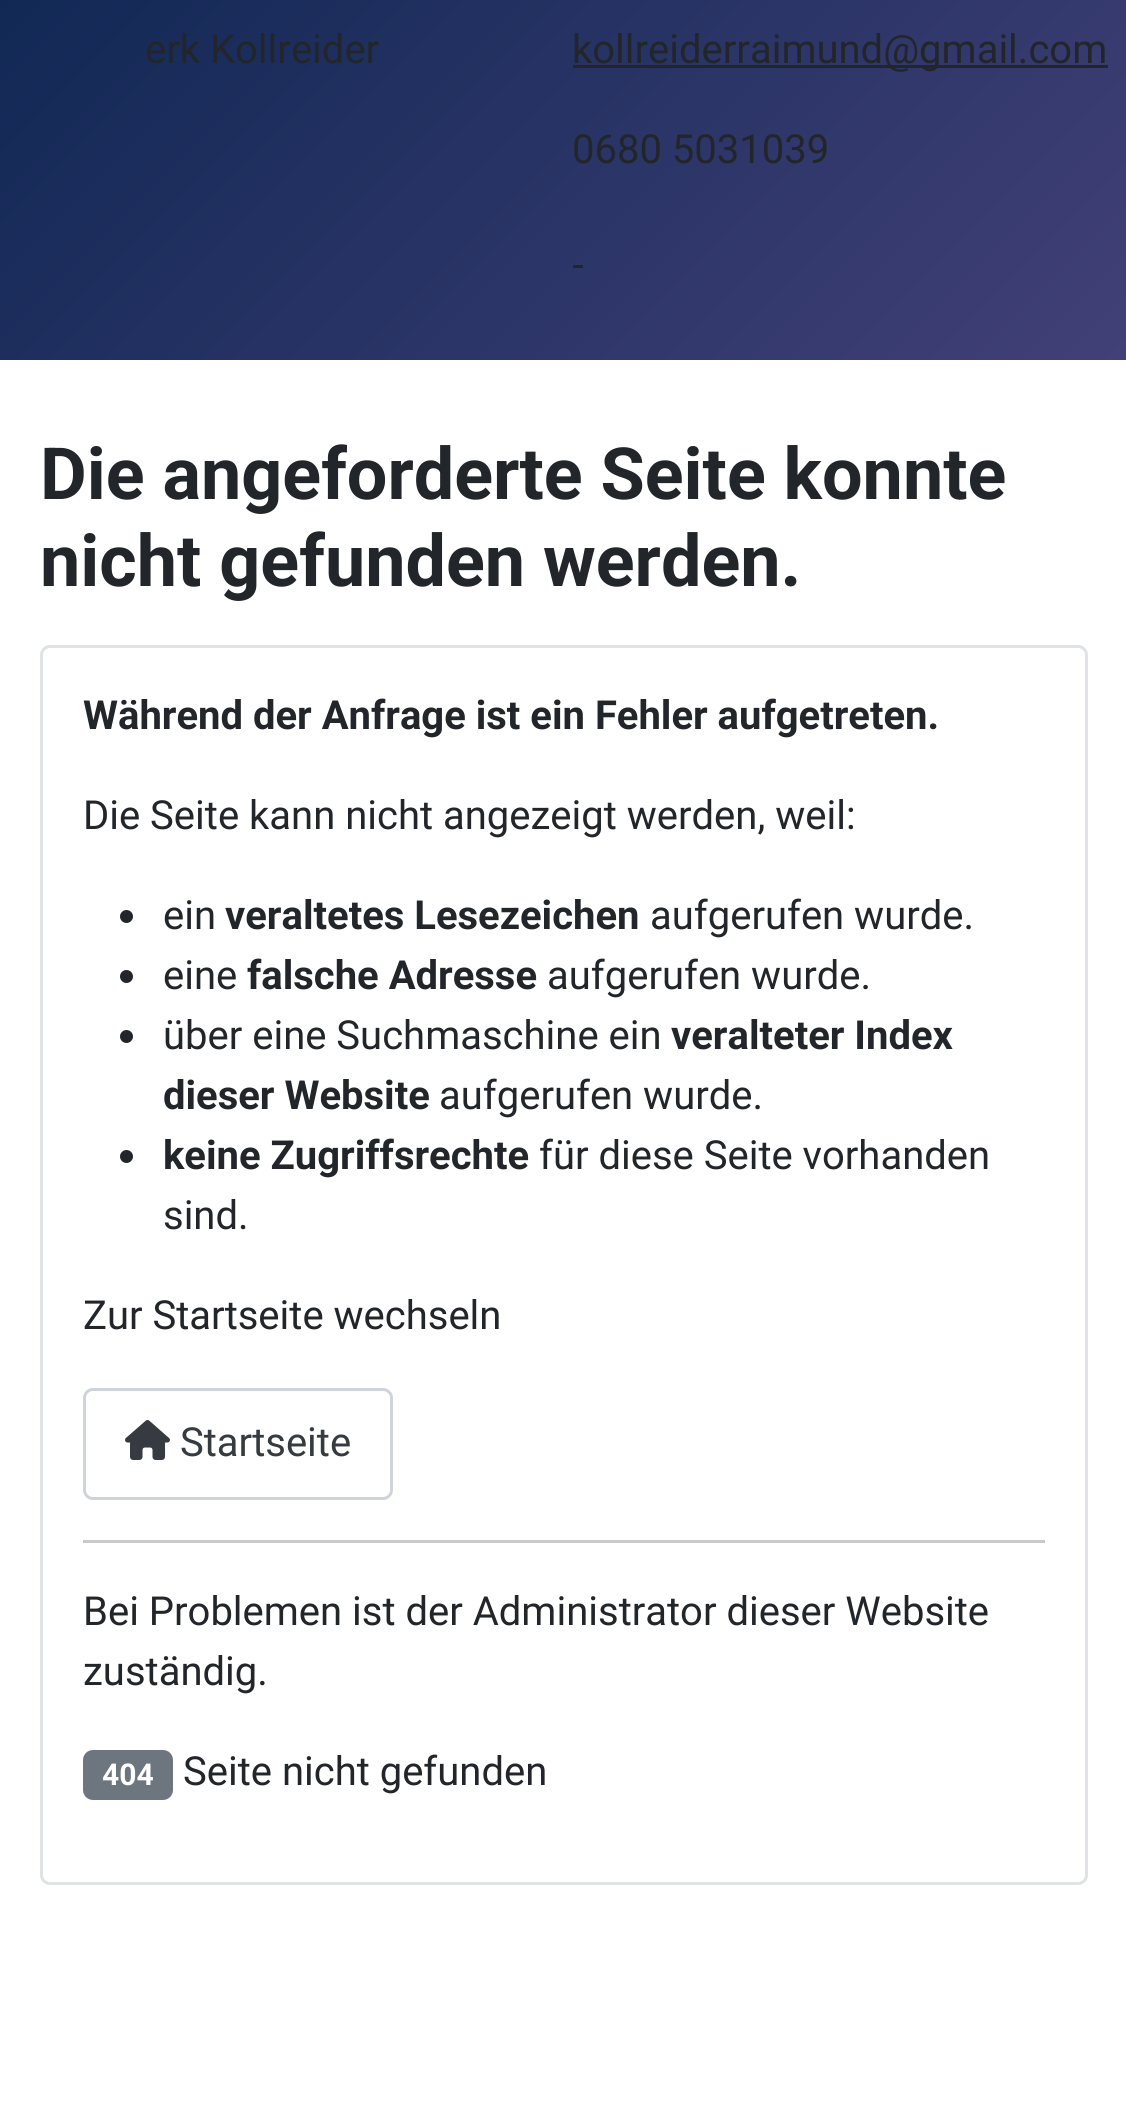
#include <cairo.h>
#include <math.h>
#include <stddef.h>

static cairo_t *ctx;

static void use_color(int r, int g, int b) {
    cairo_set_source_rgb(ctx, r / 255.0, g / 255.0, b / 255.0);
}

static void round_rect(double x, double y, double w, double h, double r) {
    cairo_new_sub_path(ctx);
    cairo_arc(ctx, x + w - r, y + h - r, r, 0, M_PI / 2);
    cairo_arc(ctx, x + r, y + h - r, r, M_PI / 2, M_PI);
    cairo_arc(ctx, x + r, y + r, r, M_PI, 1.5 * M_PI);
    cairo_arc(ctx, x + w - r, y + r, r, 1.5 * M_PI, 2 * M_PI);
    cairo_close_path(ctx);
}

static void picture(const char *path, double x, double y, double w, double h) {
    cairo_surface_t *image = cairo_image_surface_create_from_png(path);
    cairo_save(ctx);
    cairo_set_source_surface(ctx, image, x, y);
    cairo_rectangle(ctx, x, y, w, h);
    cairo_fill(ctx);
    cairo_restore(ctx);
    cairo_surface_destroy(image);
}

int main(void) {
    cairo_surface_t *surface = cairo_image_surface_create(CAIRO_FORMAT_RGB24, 1126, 2101);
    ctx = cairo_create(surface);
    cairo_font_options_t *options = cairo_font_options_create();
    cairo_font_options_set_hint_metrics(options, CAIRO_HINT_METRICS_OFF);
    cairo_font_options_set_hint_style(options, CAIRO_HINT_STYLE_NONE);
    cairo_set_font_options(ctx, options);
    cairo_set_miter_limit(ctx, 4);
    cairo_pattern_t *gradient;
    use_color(255, 255, 255);
    cairo_paint(ctx);
    gradient = cairo_pattern_create_linear(192, -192, 936, 552);
    cairo_pattern_add_color_stop_rgba(gradient, 0, 0.067, 0.157, 0.333, 1);
    cairo_pattern_add_color_stop_rgba(gradient, 1, 0.259, 0.251, 0.467, 1);
    cairo_set_source(ctx, gradient);
    cairo_pattern_destroy(gradient);
    cairo_rectangle(ctx, 0, 0, 1126, 360);
    cairo_fill(ctx);
    cairo_select_font_face(ctx, "Roboto", CAIRO_FONT_SLANT_NORMAL, CAIRO_FONT_WEIGHT_NORMAL);
    cairo_set_font_size(ctx, 40);
    use_color(34, 38, 42);
    cairo_move_to(ctx, 145, 63);
    cairo_show_text(ctx, "erk Kollreider");
    cairo_rectangle(ctx, 573, 65, 535, 3);
    cairo_fill(ctx);
    cairo_move_to(ctx, 572, 63);
    cairo_show_text(ctx, "kollreiderraimund@gmail.com");
    cairo_move_to(ctx, 572, 163);
    cairo_show_text(ctx, "0680 5031039");
    cairo_rectangle(ctx, 573, 265, 10, 3);
    cairo_fill(ctx);
    cairo_select_font_face(ctx, "Roboto", CAIRO_FONT_SLANT_NORMAL, CAIRO_FONT_WEIGHT_BOLD);
    cairo_set_font_size(ctx, 71.9);
    cairo_move_to(ctx, 40, 499);
    cairo_show_text(ctx, "Die angeforderte Seite konnte");
    cairo_move_to(ctx, 40, 586);
    cairo_show_text(ctx, "nicht gefunden werden.");
    round_rect(41.5, 646.5, 1045, 1237, 8.5);
    use_color(223, 227, 231);
    cairo_set_line_width(ctx, 3);
    cairo_stroke(ctx);
    cairo_set_font_size(ctx, 40);
    use_color(34, 38, 42);
    cairo_move_to(ctx, 83, 729);
    cairo_show_text(ctx, "Während der Anfrage ist ein Fehler aufgetreten.");
    cairo_select_font_face(ctx, "Roboto", CAIRO_FONT_SLANT_NORMAL, CAIRO_FONT_WEIGHT_NORMAL);
    cairo_move_to(ctx, 83, 829);
    cairo_show_text(ctx, "Die Seite kann nicht angezeigt werden, weil:");
    cairo_new_path(ctx);
    cairo_arc(ctx, 126.5, 916.5, 6.5, 0, 2 * M_PI);
    cairo_fill(ctx);
    cairo_move_to(ctx, 163, 929);
    cairo_show_text(ctx, "ein");
    cairo_select_font_face(ctx, "Roboto", CAIRO_FONT_SLANT_NORMAL, CAIRO_FONT_WEIGHT_BOLD);
    cairo_move_to(ctx, 225, 929);
    cairo_show_text(ctx, "veraltetes Lesezeichen");
    cairo_select_font_face(ctx, "Roboto", CAIRO_FONT_SLANT_NORMAL, CAIRO_FONT_WEIGHT_NORMAL);
    cairo_move_to(ctx, 650, 929);
    cairo_show_text(ctx, "aufgerufen wurde.");
    cairo_new_path(ctx);
    cairo_arc(ctx, 126.5, 976.5, 6.5, 0, 2 * M_PI);
    cairo_fill(ctx);
    cairo_move_to(ctx, 163, 989);
    cairo_show_text(ctx, "eine");
    cairo_select_font_face(ctx, "Roboto", CAIRO_FONT_SLANT_NORMAL, CAIRO_FONT_WEIGHT_BOLD);
    cairo_move_to(ctx, 247, 989);
    cairo_show_text(ctx, "falsche Adresse");
    cairo_select_font_face(ctx, "Roboto", CAIRO_FONT_SLANT_NORMAL, CAIRO_FONT_WEIGHT_NORMAL);
    cairo_move_to(ctx, 547, 989);
    cairo_show_text(ctx, "aufgerufen wurde.");
    cairo_new_path(ctx);
    cairo_arc(ctx, 126.5, 1036.5, 6.5, 0, 2 * M_PI);
    cairo_fill(ctx);
    cairo_move_to(ctx, 163, 1049);
    cairo_show_text(ctx, "über eine Suchmaschine ein");
    cairo_select_font_face(ctx, "Roboto", CAIRO_FONT_SLANT_NORMAL, CAIRO_FONT_WEIGHT_BOLD);
    cairo_move_to(ctx, 671, 1049);
    cairo_show_text(ctx, "veralteter Index");
    cairo_move_to(ctx, 163, 1109);
    cairo_show_text(ctx, "dieser Website");
    cairo_select_font_face(ctx, "Roboto", CAIRO_FONT_SLANT_NORMAL, CAIRO_FONT_WEIGHT_NORMAL);
    cairo_move_to(ctx, 439, 1109);
    cairo_show_text(ctx, "aufgerufen wurde.");
    cairo_new_path(ctx);
    cairo_arc(ctx, 126.5, 1156.5, 6.5, 0, 2 * M_PI);
    cairo_fill(ctx);
    cairo_select_font_face(ctx, "Roboto", CAIRO_FONT_SLANT_NORMAL, CAIRO_FONT_WEIGHT_BOLD);
    cairo_move_to(ctx, 163, 1169);
    cairo_show_text(ctx, "keine Zugriffsrechte");
    cairo_select_font_face(ctx, "Roboto", CAIRO_FONT_SLANT_NORMAL, CAIRO_FONT_WEIGHT_NORMAL);
    cairo_move_to(ctx, 539, 1169);
    cairo_show_text(ctx, "für diese Seite vorhanden");
    cairo_move_to(ctx, 163, 1229);
    cairo_show_text(ctx, "sind.");
    cairo_move_to(ctx, 83, 1329);
    cairo_show_text(ctx, "Zur Startseite wechseln");
    round_rect(84.5, 1389.5, 307, 109, 8.5);
    use_color(206, 212, 218);
    cairo_stroke(ctx);
    picture("img1.png", 125, 1420, 45, 40);
    use_color(53, 59, 65);
    cairo_move_to(ctx, 180, 1456);
    cairo_show_text(ctx, "Startseite");
    use_color(200, 201, 202);
    cairo_rectangle(ctx, 83, 1540, 962, 3);
    cairo_fill(ctx);
    use_color(34, 38, 42);
    cairo_move_to(ctx, 83, 1625);
    cairo_show_text(ctx, "Bei Problemen ist der Administrator dieser Website");
    cairo_move_to(ctx, 83, 1685);
    cairo_show_text(ctx, "zuständig.");
    use_color(109, 117, 126);
    round_rect(83, 1750, 90, 50, 10);
    cairo_fill(ctx);
    cairo_select_font_face(ctx, "Roboto", CAIRO_FONT_SLANT_NORMAL, CAIRO_FONT_WEIGHT_BOLD);
    cairo_set_font_size(ctx, 30);
    use_color(255, 255, 255);
    cairo_move_to(ctx, 102, 1785);
    cairo_show_text(ctx, "404");
    cairo_select_font_face(ctx, "Roboto", CAIRO_FONT_SLANT_NORMAL, CAIRO_FONT_WEIGHT_NORMAL);
    cairo_set_font_size(ctx, 40);
    use_color(34, 38, 42);
    cairo_move_to(ctx, 183, 1785);
    cairo_show_text(ctx, "Seite nicht gefunden");
    cairo_surface_write_to_png(surface, "result.png");
    cairo_font_options_destroy(options);
    cairo_destroy(ctx);
    cairo_surface_destroy(surface);
    return 0;
}
